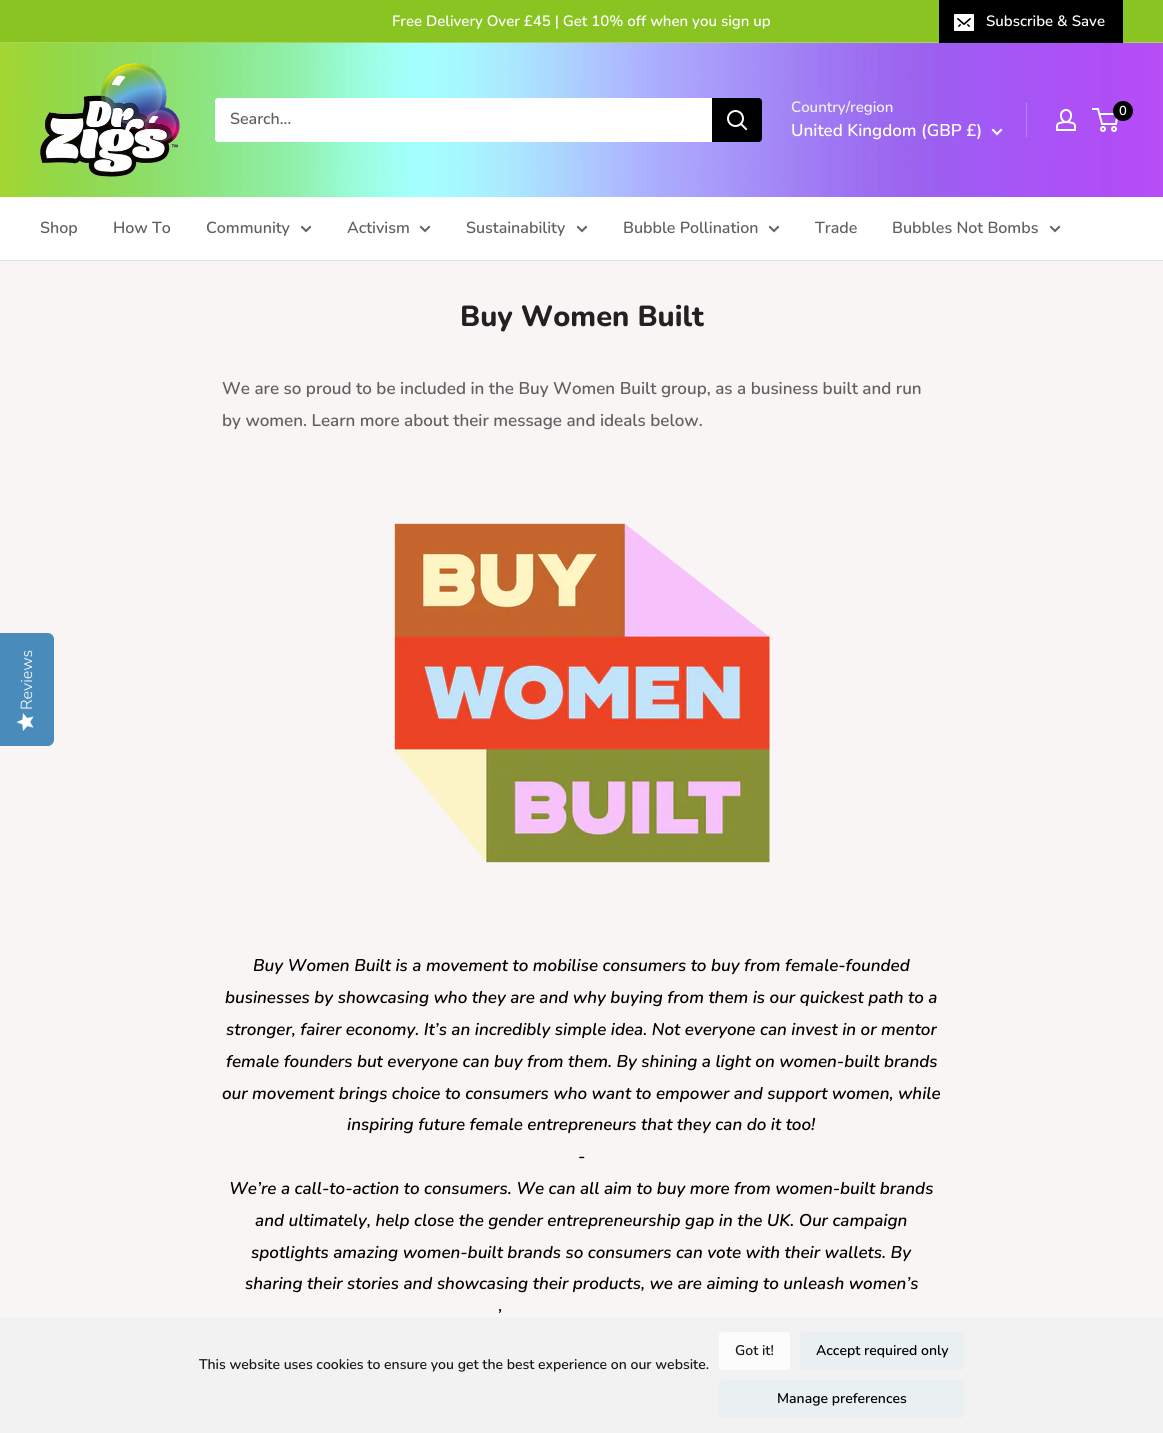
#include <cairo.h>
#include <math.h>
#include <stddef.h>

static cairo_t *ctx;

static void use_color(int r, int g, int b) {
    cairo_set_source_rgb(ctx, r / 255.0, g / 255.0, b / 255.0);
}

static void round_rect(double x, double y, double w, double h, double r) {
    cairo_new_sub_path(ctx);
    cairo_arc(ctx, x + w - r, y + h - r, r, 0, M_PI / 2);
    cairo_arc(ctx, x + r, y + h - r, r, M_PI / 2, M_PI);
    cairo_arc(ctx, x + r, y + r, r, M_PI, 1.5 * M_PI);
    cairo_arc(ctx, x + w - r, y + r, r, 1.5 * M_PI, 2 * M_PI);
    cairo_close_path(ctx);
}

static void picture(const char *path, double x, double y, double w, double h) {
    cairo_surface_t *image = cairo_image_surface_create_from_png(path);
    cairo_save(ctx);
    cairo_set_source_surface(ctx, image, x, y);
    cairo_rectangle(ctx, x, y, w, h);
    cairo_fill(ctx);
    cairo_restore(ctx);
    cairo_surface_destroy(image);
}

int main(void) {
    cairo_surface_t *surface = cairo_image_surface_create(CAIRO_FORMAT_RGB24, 1163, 1433);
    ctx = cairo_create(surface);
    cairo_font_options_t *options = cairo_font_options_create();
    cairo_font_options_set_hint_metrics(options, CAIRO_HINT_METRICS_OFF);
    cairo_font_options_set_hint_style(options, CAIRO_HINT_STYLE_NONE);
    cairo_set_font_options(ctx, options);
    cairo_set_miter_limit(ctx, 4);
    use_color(248, 245, 244);
    cairo_paint(ctx);
    use_color(138, 196, 35);
    cairo_rectangle(ctx, 0, 0, 1163, 42);
    cairo_fill(ctx);
    use_color(169, 210, 97);
    cairo_rectangle(ctx, 0, 42, 1163, 1);
    cairo_fill(ctx);
    cairo_select_font_face(ctx, "Nunito SemiBold", CAIRO_FONT_SLANT_NORMAL, CAIRO_FONT_WEIGHT_NORMAL);
    cairo_set_font_size(ctx, 15);
    use_color(255, 255, 255);
    cairo_move_to(ctx, 392, 26);
    cairo_show_text(ctx, "Free Delivery Over £45 | Get 10% off when you sign up");
    use_color(0, 0, 0);
    cairo_rectangle(ctx, 939, 0, 184, 43);
    cairo_fill(ctx);
    picture("img1.png", 954, 14, 20, 17);
    use_color(255, 255, 255);
    cairo_move_to(ctx, 986, 26);
    cairo_show_text(ctx, "Subscribe & Save");
    picture("img2.png", 0, 43, 1163, 154);
    picture("img3.png", 40, 63, 140, 114);
    round_rect(215, 98, 547, 44, 3);
    cairo_fill(ctx);
    cairo_set_font_size(ctx, 16);
    use_color(97, 97, 97);
    cairo_move_to(ctx, 230, 124);
    cairo_show_text(ctx, "Search...");
    use_color(0, 0, 0);
    cairo_new_path(ctx);
    cairo_move_to(ctx, 712, 98);
    cairo_line_to(ctx, 759, 98);
    cairo_curve_to(ctx, 760.5, 98, 762, 99.5, 762, 101);
    cairo_line_to(ctx, 762, 139);
    cairo_curve_to(ctx, 762, 140.5, 760.5, 142, 759, 142);
    cairo_line_to(ctx, 712, 142);
    cairo_close_path(ctx);
    cairo_fill(ctx);
    cairo_new_path(ctx);
    cairo_move_to(ctx, 746, 129);
    cairo_line_to(ctx, 741, 124);
    use_color(255, 255, 255);
    cairo_set_line_cap(ctx, CAIRO_LINE_CAP_SQUARE);
    cairo_stroke(ctx);
    cairo_arc(ctx, 735.5, 118.5, 7.5, 0, 2 * M_PI);
    cairo_set_line_cap(ctx, CAIRO_LINE_CAP_BUTT);
    cairo_stroke(ctx);
    cairo_set_font_size(ctx, 15);
    use_color(241, 241, 241);
    cairo_move_to(ctx, 791, 112);
    cairo_show_text(ctx, "Country/region");
    cairo_set_font_size(ctx, 17);
    use_color(255, 255, 255);
    cairo_move_to(ctx, 791, 136);
    cairo_show_text(ctx, "United Kingdom (GBP £)");
    cairo_new_path(ctx);
    cairo_move_to(ctx, 1001, 130);
    cairo_line_to(ctx, 997, 134);
    cairo_line_to(ctx, 993, 130);
    cairo_set_line_cap(ctx, CAIRO_LINE_CAP_SQUARE);
    cairo_stroke(ctx);
    cairo_set_source_rgba(ctx, 0.945, 0.945, 0.945, 0.3);
    cairo_rectangle(ctx, 1026, 103, 1, 34);
    cairo_fill(ctx);
    picture("img4.png", 1056, 109, 20, 22);
    cairo_arc(ctx, 1103, 129, 2, 0, 2 * M_PI);
    use_color(255, 255, 255);
    cairo_set_line_cap(ctx, CAIRO_LINE_CAP_BUTT);
    cairo_stroke(ctx);
    cairo_arc(ctx, 1114, 129, 2, 0, 2 * M_PI);
    cairo_stroke(ctx);
    cairo_new_path(ctx);
    cairo_move_to(ctx, 1099.5, 114);
    cairo_line_to(ctx, 1117.5, 114);
    cairo_line_to(ctx, 1116, 124);
    cairo_line_to(ctx, 1102, 124);
    cairo_line_to(ctx, 1098, 109);
    cairo_line_to(ctx, 1092, 109);
    cairo_stroke(ctx);
    use_color(0, 0, 0);
    cairo_arc(ctx, 1123, 111, 10, 0, 2 * M_PI);
    cairo_fill(ctx);
    cairo_set_font_size(ctx, 13);
    use_color(255, 255, 255);
    cairo_move_to(ctx, 1119, 115);
    cairo_show_text(ctx, "0");
    cairo_rectangle(ctx, 0, 197, 1163, 63);
    cairo_fill(ctx);
    use_color(225, 227, 228);
    cairo_rectangle(ctx, 0, 260, 1163, 1);
    cairo_fill(ctx);
    cairo_set_font_size(ctx, 16);
    use_color(97, 97, 97);
    cairo_move_to(ctx, 40, 233);
    cairo_show_text(ctx, "Shop");
    cairo_move_to(ctx, 113, 233);
    cairo_show_text(ctx, "How To");
    cairo_move_to(ctx, 206, 233);
    cairo_show_text(ctx, "Community");
    cairo_new_path(ctx);
    cairo_move_to(ctx, 310, 227);
    cairo_line_to(ctx, 306, 231);
    cairo_line_to(ctx, 302, 227);
    cairo_set_line_cap(ctx, CAIRO_LINE_CAP_SQUARE);
    cairo_stroke(ctx);
    cairo_move_to(ctx, 347, 233);
    cairo_show_text(ctx, "Activism");
    cairo_new_path(ctx);
    cairo_move_to(ctx, 429, 227);
    cairo_line_to(ctx, 425, 231);
    cairo_line_to(ctx, 421, 227);
    cairo_stroke(ctx);
    cairo_move_to(ctx, 466, 233);
    cairo_show_text(ctx, "Sustainability");
    cairo_new_path(ctx);
    cairo_move_to(ctx, 586, 227);
    cairo_line_to(ctx, 582, 231);
    cairo_line_to(ctx, 578, 227);
    cairo_stroke(ctx);
    cairo_move_to(ctx, 623, 233);
    cairo_show_text(ctx, "Bubble Pollination");
    cairo_new_path(ctx);
    cairo_move_to(ctx, 778, 227);
    cairo_line_to(ctx, 774, 231);
    cairo_line_to(ctx, 770, 227);
    cairo_stroke(ctx);
    cairo_move_to(ctx, 815, 233);
    cairo_show_text(ctx, "Trade");
    cairo_move_to(ctx, 892, 233);
    cairo_show_text(ctx, "Bubbles Not Bombs");
    cairo_new_path(ctx);
    cairo_move_to(ctx, 1059, 227);
    cairo_line_to(ctx, 1055, 231);
    cairo_line_to(ctx, 1051, 227);
    cairo_stroke(ctx);
    use_color(73, 140, 188);
    cairo_new_path(ctx);
    cairo_move_to(ctx, 0, 746);
    cairo_line_to(ctx, 0, 633);
    cairo_line_to(ctx, 48, 633);
    cairo_curve_to(ctx, 51, 633, 54, 636, 54, 639);
    cairo_line_to(ctx, 54, 740);
    cairo_curve_to(ctx, 54, 743, 51, 746, 48, 746);
    cairo_close_path(ctx);
    cairo_fill(ctx);
    cairo_select_font_face(ctx, "Nunito Sans Light", CAIRO_FONT_SLANT_NORMAL, CAIRO_FONT_WEIGHT_NORMAL);
    use_color(255, 255, 255);
    cairo_save(ctx);
    cairo_translate(ctx, 32, 710);
    cairo_rotate(ctx, -90 * M_PI / 180);
    cairo_move_to(ctx, 0, 0);
    cairo_show_text(ctx, "Reviews");
    cairo_restore(ctx);
    picture("img5.png", 16, 713, 18, 18);
    cairo_select_font_face(ctx, "Nunito ExtraBold", CAIRO_FONT_SLANT_NORMAL, CAIRO_FONT_WEIGHT_NORMAL);
    cairo_set_font_size(ctx, 29);
    use_color(34, 32, 33);
    cairo_move_to(ctx, 460, 326);
    cairo_show_text(ctx, "Buy Women Built");
    cairo_select_font_face(ctx, "Nunito SemiBold", CAIRO_FONT_SLANT_NORMAL, CAIRO_FONT_WEIGHT_NORMAL);
    cairo_set_font_size(ctx, 17);
    use_color(97, 97, 97);
    cairo_move_to(ctx, 222, 394);
    cairo_show_text(ctx, "We are so proud to be included in the Buy Women Built group, as a business built and run");
    cairo_move_to(ctx, 222, 426);
    cairo_show_text(ctx, "by women. Learn more about their message and ideals below.");
    picture("img6.png", 394, 523, 376, 340);
    cairo_select_font_face(ctx, "Nunito SemiBold", CAIRO_FONT_SLANT_ITALIC, CAIRO_FONT_WEIGHT_NORMAL);
    use_color(0, 0, 0);
    cairo_move_to(ctx, 253, 971);
    cairo_show_text(ctx, "Buy Women Built is a movement to mobilise consumers to buy from female-founded");
    cairo_move_to(ctx, 225, 1003);
    cairo_show_text(ctx, "businesses by showcasing who they are and why buying from them is our quickest path to a");
    cairo_move_to(ctx, 226, 1035);
    cairo_show_text(ctx, "stronger, fairer economy. It’s an incredibly simple idea. Not everyone can invest in or mentor");
    cairo_move_to(ctx, 226, 1067);
    cairo_show_text(ctx, "female founders but everyone can buy from them. By shining a light on women-built brands");
    cairo_move_to(ctx, 222, 1099);
    cairo_show_text(ctx, "our movement brings choice to consumers who want to empower and support women, while");
    cairo_move_to(ctx, 347, 1130);
    cairo_show_text(ctx, "inspiring future female entrepreneurs that they can do it too!");
    cairo_move_to(ctx, 578, 1162);
    cairo_show_text(ctx, "-");
    cairo_move_to(ctx, 229, 1194);
    cairo_show_text(ctx, "We’re a call-to-action to consumers. We can all aim to buy more from women-built brands");
    cairo_move_to(ctx, 255, 1226);
    cairo_show_text(ctx, "and ultimately, help close the gender entrepreneurship gap in the UK. Our campaign");
    cairo_move_to(ctx, 251, 1258);
    cairo_show_text(ctx, "spotlights amazing women-built brands so consumers can vote with their wallets. By");
    cairo_move_to(ctx, 245, 1289);
    cairo_show_text(ctx, "sharing their stories and showcasing their products, we are aiming to unleash women’s");
    cairo_move_to(ctx, 497, 1321);
    cairo_show_text(ctx, "’");
    use_color(242, 242, 242);
    cairo_rectangle(ctx, 0, 1317, 1163, 116);
    cairo_fill(ctx);
    cairo_select_font_face(ctx, "Nunito SemiBold", CAIRO_FONT_SLANT_NORMAL, CAIRO_FONT_WEIGHT_NORMAL);
    cairo_set_font_size(ctx, 14);
    use_color(26, 26, 26);
    cairo_move_to(ctx, 199, 1369);
    cairo_show_text(ctx, "This website uses cookies to ensure you get the best experience on our website.");
    use_color(252, 252, 253);
    round_rect(719, 1332, 71, 38, 3);
    cairo_fill(ctx);
    use_color(26, 26, 26);
    cairo_move_to(ctx, 735, 1355);
    cairo_show_text(ctx, "Got it!");
    use_color(234, 239, 242);
    round_rect(800, 1332, 164, 38, 3);
    cairo_fill(ctx);
    use_color(0, 0, 0);
    cairo_move_to(ctx, 816, 1355);
    cairo_show_text(ctx, "Accept required only");
    use_color(234, 239, 242);
    round_rect(719, 1380, 245, 38, 3);
    cairo_fill(ctx);
    use_color(0, 0, 0);
    cairo_move_to(ctx, 777, 1403);
    cairo_show_text(ctx, "Manage preferences");
    cairo_surface_write_to_png(surface, "result.png");
    cairo_font_options_destroy(options);
    cairo_destroy(ctx);
    cairo_surface_destroy(surface);
    return 0;
}
